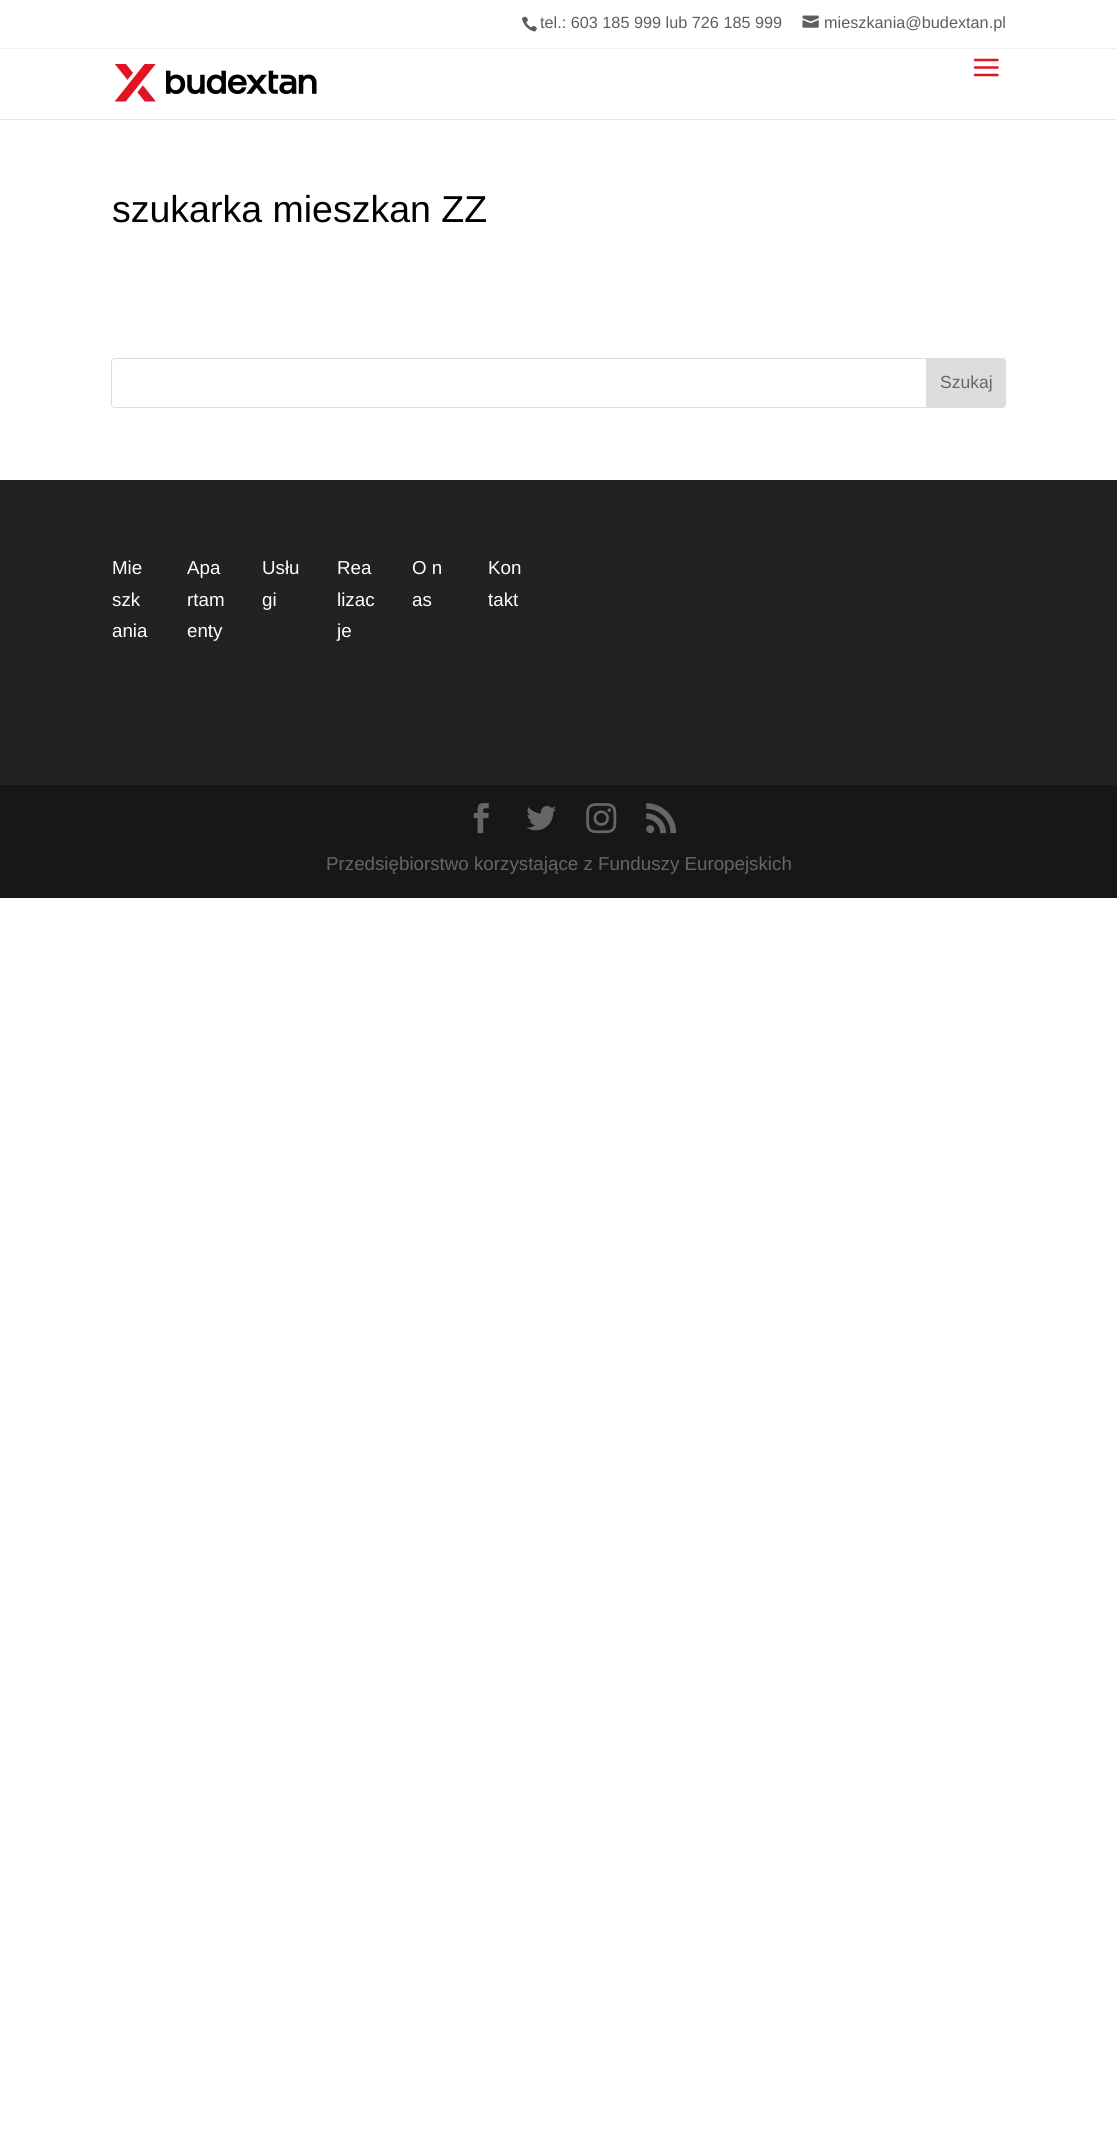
#include <cairo.h>
#include <math.h>
#include <stddef.h>

static cairo_t *ctx;

static void use_color(int r, int g, int b) {
    cairo_set_source_rgb(ctx, r / 255.0, g / 255.0, b / 255.0);
}

static void round_rect(double x, double y, double w, double h, double r) {
    cairo_new_sub_path(ctx);
    cairo_arc(ctx, x + w - r, y + h - r, r, 0, M_PI / 2);
    cairo_arc(ctx, x + r, y + h - r, r, M_PI / 2, M_PI);
    cairo_arc(ctx, x + r, y + r, r, M_PI, 1.5 * M_PI);
    cairo_arc(ctx, x + w - r, y + r, r, 1.5 * M_PI, 2 * M_PI);
    cairo_close_path(ctx);
}

static void picture(const char *path, double x, double y, double w, double h) {
    cairo_surface_t *image = cairo_image_surface_create_from_png(path);
    cairo_save(ctx);
    cairo_set_source_surface(ctx, image, x, y);
    cairo_rectangle(ctx, x, y, w, h);
    cairo_fill(ctx);
    cairo_restore(ctx);
    cairo_surface_destroy(image);
}

int main(void) {
    cairo_surface_t *surface = cairo_image_surface_create(CAIRO_FORMAT_RGB24, 1117, 2137);
    ctx = cairo_create(surface);
    cairo_font_options_t *options = cairo_font_options_create();
    cairo_font_options_set_hint_metrics(options, CAIRO_HINT_METRICS_OFF);
    cairo_font_options_set_hint_style(options, CAIRO_HINT_STYLE_NONE);
    cairo_set_font_options(ctx, options);
    cairo_set_miter_limit(ctx, 4);
    use_color(255, 255, 255);
    cairo_paint(ctx);
    use_color(239, 239, 239);
    cairo_rectangle(ctx, 0, 48, 1117, 1);
    cairo_fill(ctx);
    picture("img1.png", 522, 16, 15, 16);
    cairo_select_font_face(ctx, "Liberation Sans", CAIRO_FONT_SLANT_NORMAL, CAIRO_FONT_WEIGHT_NORMAL);
    cairo_set_font_size(ctx, 16.25);
    use_color(94, 94, 94);
    cairo_move_to(ctx, 540, 28);
    cairo_show_text(ctx, "tel.: 603 185 999 lub 726 185 999");
    picture("img2.png", 802, 15, 17, 13);
    cairo_move_to(ctx, 824, 28);
    cairo_show_text(ctx, "mieszkania@budextan.pl");
    use_color(230, 230, 230);
    cairo_new_path(ctx);
    cairo_move_to(ctx, 0, 119);
    cairo_line_to(ctx, 0, 120);
    cairo_line_to(ctx, 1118, 120);
    cairo_line_to(ctx, 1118, 50);
    cairo_line_to(ctx, 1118, 119);
    cairo_close_path(ctx);
    cairo_fill(ctx);
    picture("img3.png", 115, 64, 202, 38);
    picture("img4.png", 973, 58, 26, 19);
    cairo_set_font_size(ctx, 37.5);
    use_color(0, 0, 0);
    cairo_move_to(ctx, 112, 222);
    cairo_show_text(ctx, "szukarka mieszkan ZZ");
    round_rect(111.5, 358.5, 894, 49, 3.5);
    use_color(221, 221, 221);
    cairo_set_line_width(ctx, 1);
    cairo_stroke(ctx);
    cairo_new_path(ctx);
    cairo_move_to(ctx, 926.5, 358.5);
    cairo_line_to(ctx, 1002, 358.5);
    cairo_curve_to(ctx, 1004, 358.5, 1005.5, 360, 1005.5, 362);
    cairo_line_to(ctx, 1005.5, 404);
    cairo_curve_to(ctx, 1005.5, 406, 1004, 407.5, 1002, 407.5);
    cairo_line_to(ctx, 926.5, 407.5);
    cairo_close_path(ctx);
    cairo_fill_preserve(ctx);
    cairo_stroke(ctx);
    cairo_set_font_size(ctx, 17.5);
    use_color(102, 102, 102);
    cairo_move_to(ctx, 940, 388);
    cairo_show_text(ctx, "Szukaj");
    use_color(34, 34, 34);
    cairo_rectangle(ctx, 0, 480, 1117, 305);
    cairo_fill(ctx);
    cairo_set_font_size(ctx, 18.75);
    use_color(255, 255, 255);
    cairo_move_to(ctx, 112, 574);
    cairo_show_text(ctx, "Mie");
    cairo_move_to(ctx, 112, 606);
    cairo_show_text(ctx, "szk");
    cairo_move_to(ctx, 112, 637);
    cairo_show_text(ctx, "ania");
    cairo_move_to(ctx, 187, 574);
    cairo_show_text(ctx, "Apa");
    cairo_move_to(ctx, 187, 606);
    cairo_show_text(ctx, "rtam");
    cairo_move_to(ctx, 187, 637);
    cairo_show_text(ctx, "enty");
    cairo_move_to(ctx, 262, 574);
    cairo_show_text(ctx, "Usłu");
    cairo_move_to(ctx, 262, 606);
    cairo_show_text(ctx, "gi");
    cairo_move_to(ctx, 337, 574);
    cairo_show_text(ctx, "Rea");
    cairo_move_to(ctx, 337, 606);
    cairo_show_text(ctx, "lizac");
    cairo_move_to(ctx, 337, 637);
    cairo_show_text(ctx, "je");
    cairo_move_to(ctx, 412, 574);
    cairo_show_text(ctx, "O n");
    cairo_move_to(ctx, 412, 606);
    cairo_show_text(ctx, "as");
    cairo_move_to(ctx, 488, 574);
    cairo_show_text(ctx, "Kon");
    cairo_move_to(ctx, 488, 606);
    cairo_show_text(ctx, "takt");
    use_color(23, 23, 23);
    cairo_rectangle(ctx, 0, 785, 1117, 113);
    cairo_fill(ctx);
    picture("img5.png", 473, 803, 16, 31);
    picture("img6.png", 526, 806, 30, 25);
    picture("img7.png", 586, 803, 31, 31);
    picture("img8.png", 646, 803, 31, 31);
    use_color(102, 102, 102);
    cairo_move_to(ctx, 326, 870);
    cairo_show_text(ctx, "Przedsiębiorstwo korzystające z Funduszy Europejskich");
    cairo_surface_write_to_png(surface, "result.png");
    cairo_font_options_destroy(options);
    cairo_destroy(ctx);
    cairo_surface_destroy(surface);
    return 0;
}
